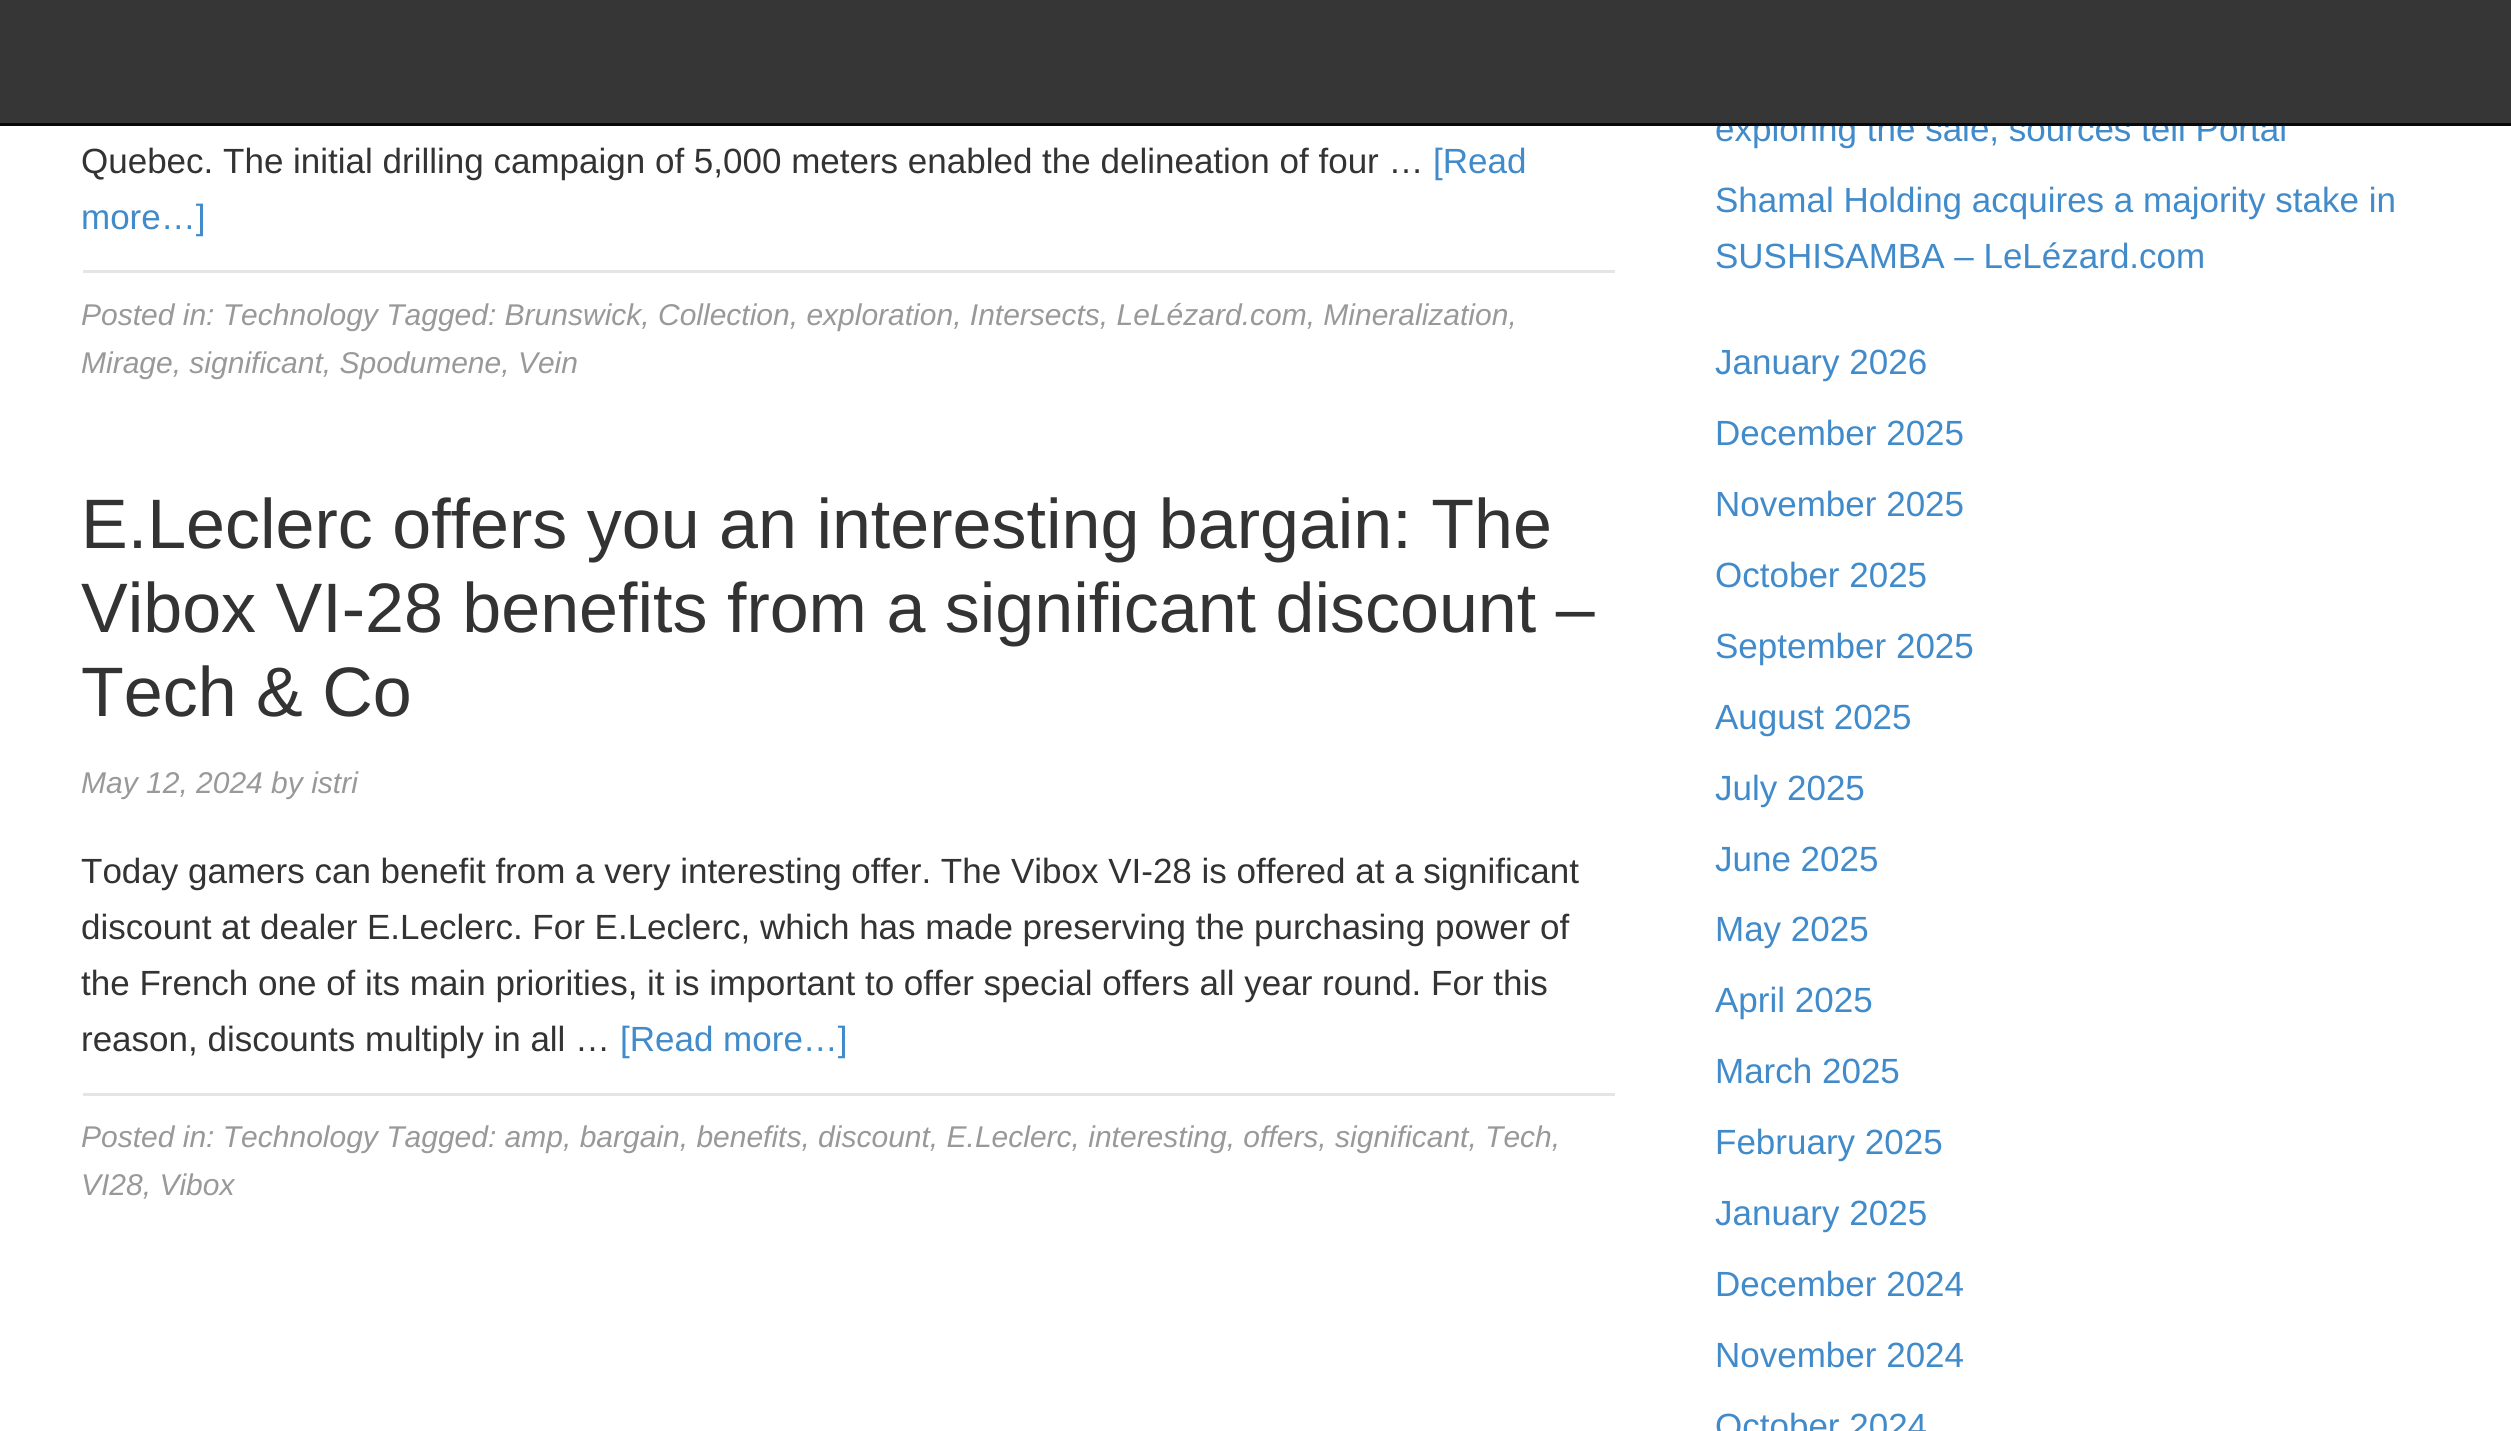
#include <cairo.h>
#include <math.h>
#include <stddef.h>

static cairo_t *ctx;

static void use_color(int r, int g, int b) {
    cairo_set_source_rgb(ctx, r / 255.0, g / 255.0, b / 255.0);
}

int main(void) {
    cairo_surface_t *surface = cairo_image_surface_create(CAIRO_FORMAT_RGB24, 2511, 1431);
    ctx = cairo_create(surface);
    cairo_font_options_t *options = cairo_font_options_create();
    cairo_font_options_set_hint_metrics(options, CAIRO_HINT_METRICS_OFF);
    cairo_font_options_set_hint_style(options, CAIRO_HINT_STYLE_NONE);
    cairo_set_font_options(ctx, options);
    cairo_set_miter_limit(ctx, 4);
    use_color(255, 255, 255);
    cairo_paint(ctx);
    cairo_select_font_face(ctx, "Liberation Sans", CAIRO_FONT_SLANT_NORMAL, CAIRO_FONT_WEIGHT_NORMAL);
    cairo_set_font_size(ctx, 35);
    use_color(66, 139, 202);
    cairo_move_to(ctx, 1715, 141);
    cairo_show_text(ctx, "exploring the sale, sources tell Portal");
    use_color(54, 54, 54);
    cairo_rectangle(ctx, 0, 0, 2511, 123);
    cairo_fill(ctx);
    use_color(8, 8, 8);
    cairo_rectangle(ctx, 0, 123, 2511, 3);
    cairo_fill(ctx);
    use_color(51, 51, 51);
    cairo_move_to(ctx, 81, 173);
    cairo_show_text(ctx, "Quebec. The initial drilling campaign of 5,000 meters enabled the delineation of four …");
    use_color(66, 139, 202);
    cairo_move_to(ctx, 1433, 173);
    cairo_show_text(ctx, "[Read");
    cairo_move_to(ctx, 81, 229);
    cairo_show_text(ctx, "more…]");
    use_color(229, 229, 229);
    cairo_rectangle(ctx, 83, 270, 1532, 3);
    cairo_fill(ctx);
    cairo_select_font_face(ctx, "Liberation Sans", CAIRO_FONT_SLANT_ITALIC, CAIRO_FONT_WEIGHT_NORMAL);
    cairo_set_font_size(ctx, 30);
    use_color(153, 153, 153);
    cairo_move_to(ctx, 81, 325);
    cairo_show_text(ctx, "Posted in: Technology Tagged: Brunswick, Collection, exploration, Intersects, LeLézard.com, Mineralization,");
    cairo_move_to(ctx, 81, 373);
    cairo_show_text(ctx, "Mirage, significant, Spodumene, Vein");
    cairo_select_font_face(ctx, "Liberation Sans", CAIRO_FONT_SLANT_NORMAL, CAIRO_FONT_WEIGHT_NORMAL);
    cairo_set_font_size(ctx, 70);
    use_color(51, 51, 51);
    cairo_move_to(ctx, 81, 548);
    cairo_show_text(ctx, "E.Leclerc offers you an interesting bargain: The");
    cairo_move_to(ctx, 81, 632);
    cairo_show_text(ctx, "Vibox VI-28 benefits from a significant discount –");
    cairo_move_to(ctx, 81, 716);
    cairo_show_text(ctx, "Tech & Co");
    cairo_select_font_face(ctx, "Liberation Sans", CAIRO_FONT_SLANT_ITALIC, CAIRO_FONT_WEIGHT_NORMAL);
    cairo_set_font_size(ctx, 30);
    use_color(153, 153, 153);
    cairo_move_to(ctx, 81, 793);
    cairo_show_text(ctx, "May 12, 2024 by istri");
    cairo_select_font_face(ctx, "Liberation Sans", CAIRO_FONT_SLANT_NORMAL, CAIRO_FONT_WEIGHT_NORMAL);
    cairo_set_font_size(ctx, 35);
    use_color(51, 51, 51);
    cairo_move_to(ctx, 81, 883);
    cairo_show_text(ctx, "Today gamers can benefit from a very interesting offer. The Vibox VI-28 is offered at a significant");
    cairo_move_to(ctx, 81, 939);
    cairo_show_text(ctx, "discount at dealer E.Leclerc. For E.Leclerc, which has made preserving the purchasing power of");
    cairo_move_to(ctx, 81, 995);
    cairo_show_text(ctx, "the French one of its main priorities, it is important to offer special offers all year round. For this");
    cairo_move_to(ctx, 81, 1051);
    cairo_show_text(ctx, "reason, discounts multiply in all …");
    use_color(66, 139, 202);
    cairo_move_to(ctx, 620, 1051);
    cairo_show_text(ctx, "[Read more…]");
    use_color(229, 229, 229);
    cairo_rectangle(ctx, 83, 1093, 1532, 3);
    cairo_fill(ctx);
    cairo_select_font_face(ctx, "Liberation Sans", CAIRO_FONT_SLANT_ITALIC, CAIRO_FONT_WEIGHT_NORMAL);
    cairo_set_font_size(ctx, 30);
    use_color(153, 153, 153);
    cairo_move_to(ctx, 81, 1147);
    cairo_show_text(ctx, "Posted in: Technology Tagged: amp, bargain, benefits, discount, E.Leclerc, interesting, offers, significant, Tech,");
    cairo_move_to(ctx, 81, 1195);
    cairo_show_text(ctx, "VI28, Vibox");
    cairo_select_font_face(ctx, "Liberation Sans", CAIRO_FONT_SLANT_NORMAL, CAIRO_FONT_WEIGHT_NORMAL);
    cairo_set_font_size(ctx, 35);
    use_color(66, 139, 202);
    cairo_move_to(ctx, 1715, 212);
    cairo_show_text(ctx, "Shamal Holding acquires a majority stake in");
    cairo_move_to(ctx, 1715, 268);
    cairo_show_text(ctx, "SUSHISAMBA – LeLézard.com");
    cairo_move_to(ctx, 1715, 374);
    cairo_show_text(ctx, "January 2026");
    cairo_move_to(ctx, 1715, 445);
    cairo_show_text(ctx, "December 2025");
    cairo_move_to(ctx, 1715, 516);
    cairo_show_text(ctx, "November 2025");
    cairo_move_to(ctx, 1715, 587);
    cairo_show_text(ctx, "October 2025");
    cairo_move_to(ctx, 1715, 658);
    cairo_show_text(ctx, "September 2025");
    cairo_move_to(ctx, 1715, 729);
    cairo_show_text(ctx, "August 2025");
    cairo_move_to(ctx, 1715, 800);
    cairo_show_text(ctx, "July 2025");
    cairo_move_to(ctx, 1715, 871);
    cairo_show_text(ctx, "June 2025");
    cairo_move_to(ctx, 1715, 941);
    cairo_show_text(ctx, "May 2025");
    cairo_move_to(ctx, 1715, 1012);
    cairo_show_text(ctx, "April 2025");
    cairo_move_to(ctx, 1715, 1083);
    cairo_show_text(ctx, "March 2025");
    cairo_move_to(ctx, 1715, 1154);
    cairo_show_text(ctx, "February 2025");
    cairo_move_to(ctx, 1715, 1225);
    cairo_show_text(ctx, "January 2025");
    cairo_move_to(ctx, 1715, 1296);
    cairo_show_text(ctx, "December 2024");
    cairo_move_to(ctx, 1715, 1367);
    cairo_show_text(ctx, "November 2024");
    cairo_move_to(ctx, 1715, 1438);
    cairo_show_text(ctx, "October 2024");
    cairo_surface_write_to_png(surface, "result.png");
    cairo_font_options_destroy(options);
    cairo_destroy(ctx);
    cairo_surface_destroy(surface);
    return 0;
}
